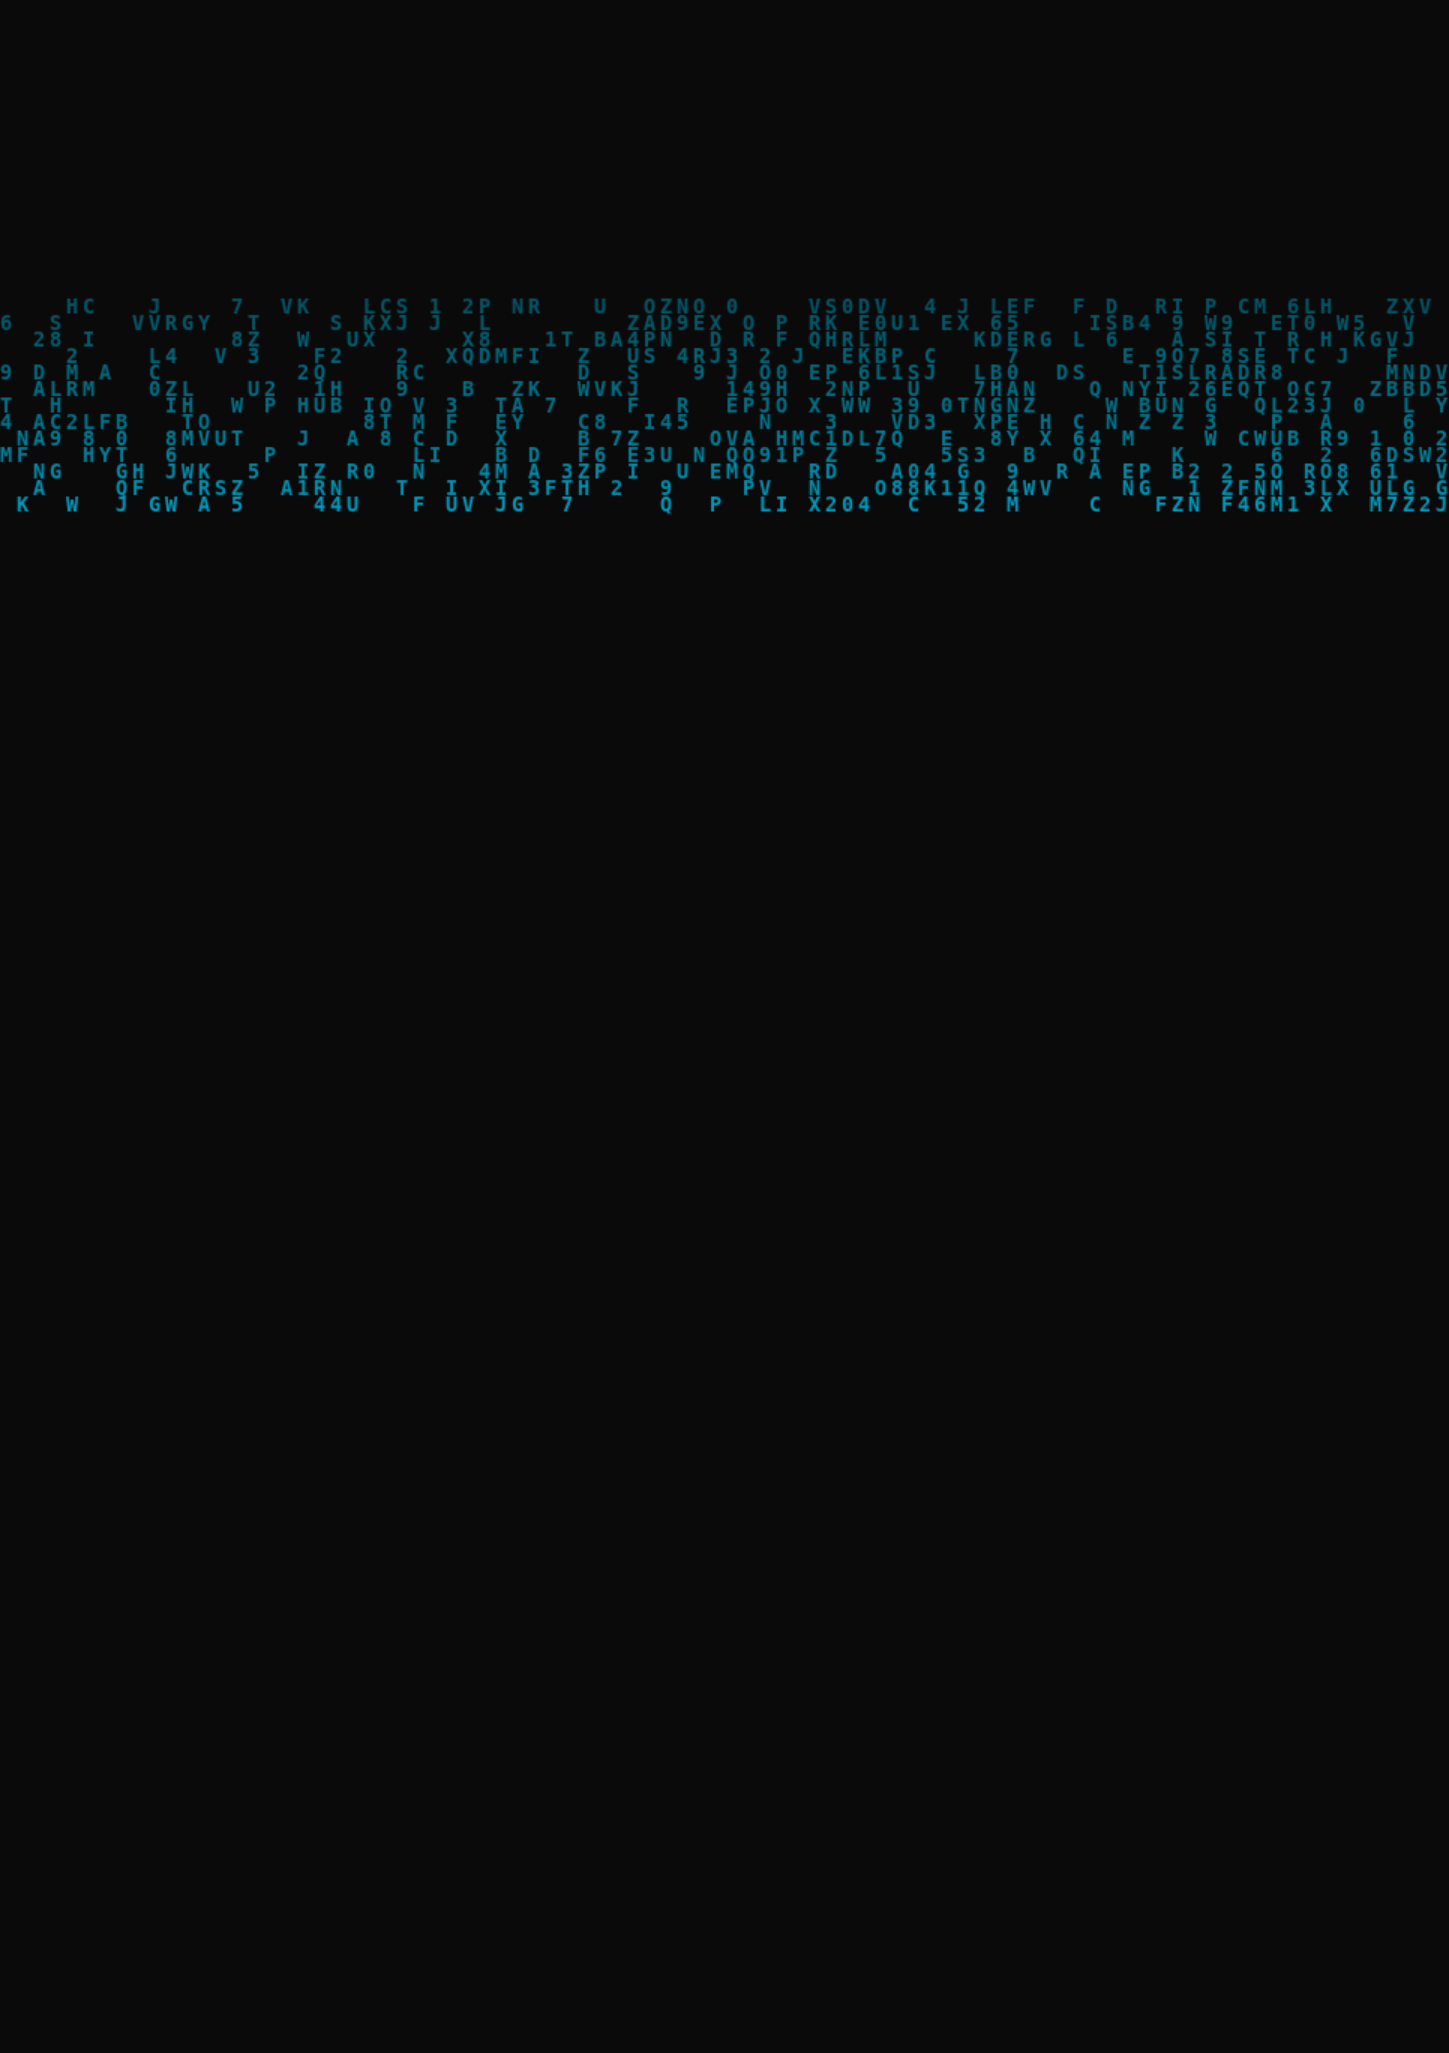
#include <cairo.h>
#include <math.h>
#include <stddef.h>

static cairo_t *ctx;

static void use_color(int r, int g, int b) {
    cairo_set_source_rgb(ctx, r / 255.0, g / 255.0, b / 255.0);
}

static void picture(const char *path, double x, double y, double w, double h) {
    cairo_surface_t *image = cairo_image_surface_create_from_png(path);
    cairo_save(ctx);
    cairo_set_source_surface(ctx, image, x, y);
    cairo_rectangle(ctx, x, y, w, h);
    cairo_fill(ctx);
    cairo_restore(ctx);
    cairo_surface_destroy(image);
}

int main(void) {
    cairo_surface_t *surface = cairo_image_surface_create(CAIRO_FORMAT_RGB24, 1449, 2053);
    ctx = cairo_create(surface);
    cairo_font_options_t *options = cairo_font_options_create();
    cairo_font_options_set_hint_metrics(options, CAIRO_HINT_METRICS_OFF);
    cairo_font_options_set_hint_style(options, CAIRO_HINT_STYLE_NONE);
    cairo_set_font_options(ctx, options);
    cairo_set_miter_limit(ctx, 4);
    use_color(18, 18, 18);
    cairo_paint(ctx);
    picture("img1.png", 0, 0, 1449, 2053);
    cairo_surface_write_to_png(surface, "result.png");
    cairo_font_options_destroy(options);
    cairo_destroy(ctx);
    cairo_surface_destroy(surface);
    return 0;
}
